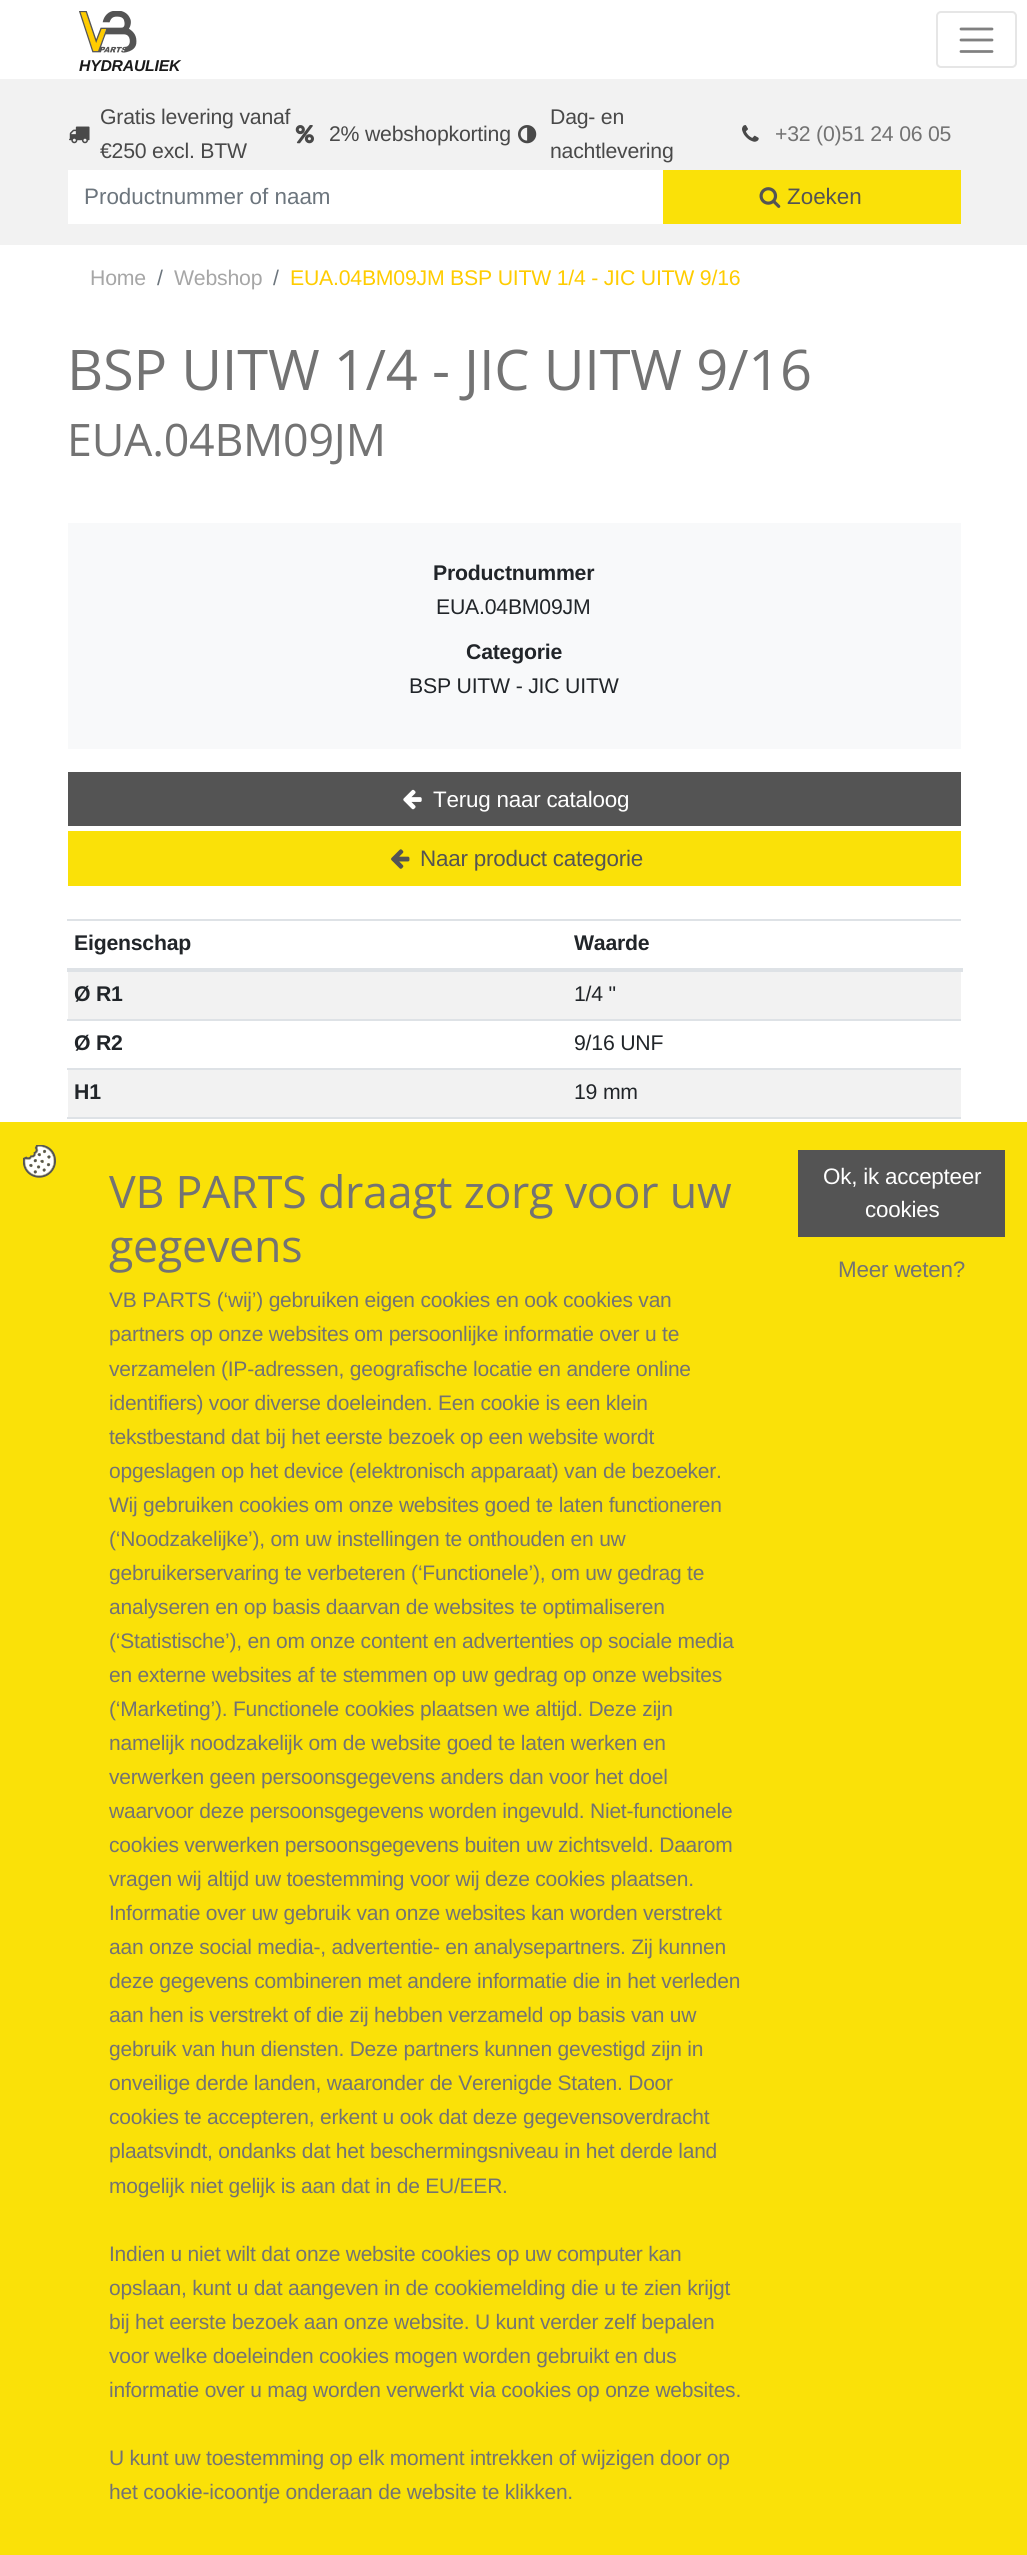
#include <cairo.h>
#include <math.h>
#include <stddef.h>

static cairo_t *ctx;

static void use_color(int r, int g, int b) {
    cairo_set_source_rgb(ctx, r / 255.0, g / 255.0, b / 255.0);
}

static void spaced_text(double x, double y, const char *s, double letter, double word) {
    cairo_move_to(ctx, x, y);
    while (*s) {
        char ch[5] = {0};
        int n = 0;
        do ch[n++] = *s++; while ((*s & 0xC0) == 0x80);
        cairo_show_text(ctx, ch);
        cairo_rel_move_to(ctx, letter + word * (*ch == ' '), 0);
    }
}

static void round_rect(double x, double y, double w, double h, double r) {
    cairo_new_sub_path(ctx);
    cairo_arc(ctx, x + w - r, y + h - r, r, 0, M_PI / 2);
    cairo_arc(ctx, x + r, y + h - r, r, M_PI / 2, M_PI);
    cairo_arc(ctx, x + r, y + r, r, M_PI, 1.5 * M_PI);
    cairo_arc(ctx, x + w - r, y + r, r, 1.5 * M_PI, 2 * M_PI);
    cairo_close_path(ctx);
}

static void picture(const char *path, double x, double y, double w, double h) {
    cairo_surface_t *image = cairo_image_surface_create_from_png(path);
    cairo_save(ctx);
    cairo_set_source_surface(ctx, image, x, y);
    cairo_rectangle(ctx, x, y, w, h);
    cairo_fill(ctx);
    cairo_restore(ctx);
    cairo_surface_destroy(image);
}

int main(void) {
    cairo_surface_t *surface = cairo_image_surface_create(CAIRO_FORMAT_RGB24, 1027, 2555);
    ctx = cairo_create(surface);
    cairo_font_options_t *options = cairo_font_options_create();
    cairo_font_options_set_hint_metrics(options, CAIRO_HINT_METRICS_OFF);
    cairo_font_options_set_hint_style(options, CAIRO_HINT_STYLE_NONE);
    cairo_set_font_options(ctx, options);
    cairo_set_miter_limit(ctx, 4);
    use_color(255, 255, 255);
    cairo_paint(ctx);
    picture("img1.png", 79, 11, 58, 42);
    cairo_select_font_face(ctx, "Liberation Sans", CAIRO_FONT_SLANT_ITALIC, CAIRO_FONT_WEIGHT_BOLD);
    cairo_set_font_size(ctx, 15.75);
    use_color(26, 26, 26);
    spaced_text(79, 71, "HYDRAULIEK", -0.22, 0);
    round_rect(937, 12, 79, 55, 4);
    use_color(230, 230, 230);
    cairo_stroke(ctx);
    cairo_new_path(ctx);
    cairo_move_to(ctx, 961, 29);
    cairo_line_to(ctx, 992, 29);
    cairo_move_to(ctx, 961, 40);
    cairo_line_to(ctx, 992, 40);
    cairo_move_to(ctx, 961, 51.5);
    cairo_line_to(ctx, 992, 51.5);
    use_color(128, 128, 128);
    cairo_set_line_width(ctx, 2.8);
    cairo_set_line_cap(ctx, CAIRO_LINE_CAP_ROUND);
    cairo_stroke(ctx);
    use_color(242, 242, 242);
    cairo_rectangle(ctx, 0, 79, 1027, 166);
    cairo_fill(ctx);
    picture("img2.png", 69, 126, 21, 18);
    cairo_select_font_face(ctx, "Liberation Sans", CAIRO_FONT_SLANT_NORMAL, CAIRO_FONT_WEIGHT_NORMAL);
    cairo_set_font_size(ctx, 21.25);
    use_color(73, 73, 73);
    spaced_text(100, 124, "Gratis levering vanaf", -0.22, 0);
    spaced_text(100, 158, "€250 excl. BTW", -0.22, 0);
    picture("img3.png", 295, 125, 19, 19);
    spaced_text(329, 141, "2% webshopkorting", -0.22, 0);
    picture("img4.png", 518, 125, 19, 19);
    spaced_text(550, 124, "Dag- en", -0.22, 0);
    spaced_text(550, 158, "nachtlevering", -0.22, 0);
    picture("img5.png", 742, 125, 17, 17);
    use_color(115, 115, 115);
    spaced_text(775, 141, "+32 (0)51 24 06 05", -0.22, 0);
    use_color(255, 255, 255);
    cairo_rectangle(ctx, 68, 170, 595, 54);
    cairo_fill(ctx);
    cairo_set_font_size(ctx, 22.4);
    use_color(108, 117, 125);
    cairo_move_to(ctx, 84, 204);
    cairo_show_text(ctx, "Productnummer of naam");
    use_color(250, 225, 8);
    cairo_rectangle(ctx, 663, 170, 298, 54);
    cairo_fill(ctx);
    picture("img6.png", 759, 187, 22, 21);
    use_color(84, 84, 84);
    cairo_move_to(ctx, 787, 204);
    cairo_show_text(ctx, "Zoeken");
    cairo_set_font_size(ctx, 21.25);
    use_color(166, 166, 166);
    spaced_text(90, 285, "Home", -0.22, 0);
    use_color(108, 117, 125);
    spaced_text(157, 285, "/", -0.22, 0);
    use_color(166, 166, 166);
    spaced_text(174, 285, "Webshop", -0.22, 0);
    use_color(108, 117, 125);
    spaced_text(273, 285, "/", -0.22, 0);
    use_color(255, 204, 0);
    spaced_text(290, 285, "EUA.04BM09JM BSP UITW 1/4 - JIC UITW 9/16", -0.22, 0);
    cairo_select_font_face(ctx, "Open Sans", CAIRO_FONT_SLANT_NORMAL, CAIRO_FONT_WEIGHT_NORMAL);
    cairo_set_font_size(ctx, 56);
    use_color(115, 115, 115);
    spaced_text(67, 390, "BSP UITW 1/4 - JIC UITW 9/16", -0.22, 0);
    cairo_set_font_size(ctx, 44.75);
    spaced_text(67, 456, "EUA.04BM09JM", -0.22, 0);
    use_color(248, 249, 250);
    cairo_rectangle(ctx, 68, 523, 893, 226);
    cairo_fill(ctx);
    cairo_select_font_face(ctx, "Liberation Sans", CAIRO_FONT_SLANT_NORMAL, CAIRO_FONT_WEIGHT_BOLD);
    cairo_set_font_size(ctx, 21.25);
    use_color(33, 37, 41);
    spaced_text(433, 580, "Productnummer", -0.22, 0);
    cairo_select_font_face(ctx, "Liberation Sans", CAIRO_FONT_SLANT_NORMAL, CAIRO_FONT_WEIGHT_NORMAL);
    spaced_text(436, 614, "EUA.04BM09JM", -0.22, 0);
    cairo_select_font_face(ctx, "Liberation Sans", CAIRO_FONT_SLANT_NORMAL, CAIRO_FONT_WEIGHT_BOLD);
    spaced_text(466, 659, "Categorie", -0.22, 0);
    cairo_select_font_face(ctx, "Liberation Sans", CAIRO_FONT_SLANT_NORMAL, CAIRO_FONT_WEIGHT_NORMAL);
    spaced_text(409, 693, "BSP UITW - JIC UITW", -0.22, 0);
    use_color(84, 84, 84);
    cairo_rectangle(ctx, 68, 772, 893, 54);
    cairo_fill(ctx);
    picture("img7.png", 403, 789, 19, 21);
    cairo_set_font_size(ctx, 22.4);
    use_color(255, 255, 255);
    spaced_text(433, 807, "Terug naar cataloog", -0.22, 0);
    use_color(250, 225, 8);
    cairo_rectangle(ctx, 68, 831, 893, 55);
    cairo_fill(ctx);
    picture("img8.png", 391, 849, 19, 20);
    use_color(84, 84, 84);
    spaced_text(420, 866, "Naar product categorie", -0.22, 0);
    cairo_select_font_face(ctx, "Liberation Sans", CAIRO_FONT_SLANT_NORMAL, CAIRO_FONT_WEIGHT_BOLD);
    cairo_set_font_size(ctx, 21.25);
    use_color(33, 37, 41);
    spaced_text(74, 950, "Eigenschap", -0.22, 0);
    use_color(222, 226, 230);
    cairo_rectangle(ctx, 67, 919, 894, 2);
    cairo_fill(ctx);
    cairo_rectangle(ctx, 67, 968, 896, 4);
    cairo_fill(ctx);
    use_color(33, 37, 41);
    spaced_text(574, 950, "Waarde", -0.22, 0);
    use_color(242, 242, 242);
    cairo_rectangle(ctx, 68, 972, 893, 47);
    cairo_fill(ctx);
    use_color(33, 37, 41);
    spaced_text(74, 1001, "Ø R1", -0.22, 0);
    cairo_select_font_face(ctx, "Liberation Sans", CAIRO_FONT_SLANT_NORMAL, CAIRO_FONT_WEIGHT_NORMAL);
    spaced_text(574, 1001, "1/4 \"", -0.22, 0);
    cairo_select_font_face(ctx, "Liberation Sans", CAIRO_FONT_SLANT_NORMAL, CAIRO_FONT_WEIGHT_BOLD);
    spaced_text(74, 1050, "Ø R2", -0.22, 0);
    use_color(222, 226, 230);
    cairo_rectangle(ctx, 67, 1019, 894, 2);
    cairo_fill(ctx);
    cairo_select_font_face(ctx, "Liberation Sans", CAIRO_FONT_SLANT_NORMAL, CAIRO_FONT_WEIGHT_NORMAL);
    use_color(33, 37, 41);
    spaced_text(574, 1050, "9/16 UNF", -0.22, 0);
    use_color(242, 242, 242);
    cairo_rectangle(ctx, 68, 1070, 893, 47);
    cairo_fill(ctx);
    cairo_select_font_face(ctx, "Liberation Sans", CAIRO_FONT_SLANT_NORMAL, CAIRO_FONT_WEIGHT_BOLD);
    use_color(33, 37, 41);
    spaced_text(74, 1099, "H1", -0.22, 0);
    use_color(222, 226, 230);
    cairo_rectangle(ctx, 67, 1068, 894, 2);
    cairo_fill(ctx);
    cairo_select_font_face(ctx, "Liberation Sans", CAIRO_FONT_SLANT_NORMAL, CAIRO_FONT_WEIGHT_NORMAL);
    use_color(33, 37, 41);
    spaced_text(574, 1099, "19 mm", -0.22, 0);
    use_color(222, 226, 230);
    cairo_rectangle(ctx, 67, 1117, 894, 2);
    cairo_fill(ctx);
    use_color(250, 225, 8);
    cairo_rectangle(ctx, 0, 1122, 1027, 1433);
    cairo_fill(ctx);
    picture("img9.png", 23, 1145, 33, 33);
    cairo_select_font_face(ctx, "Open Sans", CAIRO_FONT_SLANT_NORMAL, CAIRO_FONT_WEIGHT_NORMAL);
    cairo_set_font_size(ctx, 44.75);
    use_color(115, 115, 115);
    spaced_text(109, 1208, "VB PARTS draagt zorg voor uw", -0.22, 0);
    spaced_text(109, 1262, "gegevens", -0.22, 0);
    cairo_select_font_face(ctx, "Liberation Sans", CAIRO_FONT_SLANT_NORMAL, CAIRO_FONT_WEIGHT_NORMAL);
    cairo_set_font_size(ctx, 21);
    spaced_text(109, 1307, "VB PARTS (‘wij’) gebruiken eigen cookies en ook cookies van", -0.22, 0);
    spaced_text(109, 1341, "partners op onze websites om persoonlijke informatie over u te", -0.22, 0);
    spaced_text(109, 1376, "verzamelen (IP-adressen, geografische locatie en andere online", -0.22, 0);
    spaced_text(109, 1410, "identifiers) voor diverse doeleinden. Een cookie is een klein", -0.22, 0);
    spaced_text(109, 1444, "tekstbestand dat bij het eerste bezoek op een website wordt", -0.22, 0);
    spaced_text(109, 1478, "opgeslagen op het device (elektronisch apparaat) van de bezoeker.", -0.22, 0);
    spaced_text(109, 1512, "Wij gebruiken cookies om onze websites goed te laten functioneren", -0.22, 0);
    spaced_text(109, 1546, "(‘Noodzakelijke’), om uw instellingen te onthouden en uw", -0.22, 0);
    spaced_text(109, 1580, "gebruikerservaring te verbeteren (‘Functionele’), om uw gedrag te", -0.22, 0);
    spaced_text(109, 1614, "analyseren en op basis daarvan de websites te optimaliseren", -0.22, 0);
    spaced_text(109, 1648, "(‘Statistische’), en om onze content en advertenties op sociale media", -0.22, 0);
    spaced_text(109, 1682, "en externe websites af te stemmen op uw gedrag op onze websites", -0.22, 0);
    spaced_text(109, 1716, "(‘Marketing’). Functionele cookies plaatsen we altijd. Deze zijn", -0.22, 0);
    spaced_text(109, 1750, "namelijk noodzakelijk om de website goed te laten werken en", -0.22, 0);
    spaced_text(109, 1784, "verwerken geen persoonsgegevens anders dan voor het doel", -0.22, 0);
    spaced_text(109, 1818, "waarvoor deze persoonsgegevens worden ingevuld. Niet-functionele", -0.22, 0);
    spaced_text(109, 1852, "cookies verwerken persoonsgegevens buiten uw zichtsveld. Daarom", -0.22, 0);
    spaced_text(109, 1886, "vragen wij altijd uw toestemming voor wij deze cookies plaatsen.", -0.22, 0);
    spaced_text(109, 1920, "Informatie over uw gebruik van onze websites kan worden verstrekt", -0.22, 0);
    spaced_text(109, 1954, "aan onze social media-, advertentie- en analysepartners. Zij kunnen", -0.22, 0);
    spaced_text(109, 1988, "deze gegevens combineren met andere informatie die in het verleden", -0.22, 0);
    spaced_text(109, 2022, "aan hen is verstrekt of die zij hebben verzameld op basis van uw", -0.22, 0);
    spaced_text(109, 2056, "gebruik van hun diensten. Deze partners kunnen gevestigd zijn in", -0.22, 0);
    spaced_text(109, 2090, "onveilige derde landen, waaronder de Verenigde Staten. Door", -0.22, 0);
    spaced_text(109, 2124, "cookies te accepteren, erkent u ook dat deze gegevensoverdracht", -0.22, 0);
    spaced_text(109, 2158, "plaatsvindt, ondanks dat het beschermingsniveau in het derde land", -0.22, 0);
    spaced_text(109, 2193, "mogelijk niet gelijk is aan dat in de EU/EER.", -0.22, 0);
    spaced_text(109, 2261, "Indien u niet wilt dat onze website cookies op uw computer kan", -0.22, 0);
    spaced_text(109, 2295, "opslaan, kunt u dat aangeven in de cookiemelding die u te zien krijgt", -0.22, 0);
    spaced_text(109, 2329, "bij het eerste bezoek aan onze website. U kunt verder zelf bepalen", -0.22, 0);
    spaced_text(109, 2363, "voor welke doeleinden cookies mogen worden gebruikt en dus", -0.22, 0);
    spaced_text(109, 2397, "informatie over u mag worden verwerkt via cookies op onze websites.", -0.22, 0);
    spaced_text(109, 2465, "U kunt uw toestemming op elk moment intrekken of wijzigen door op", -0.22, 0);
    spaced_text(109, 2499, "het cookie-icoontje onderaan de website te klikken.", -0.22, 0);
    use_color(84, 84, 84);
    cairo_rectangle(ctx, 798, 1150, 207, 87);
    cairo_fill(ctx);
    cairo_set_font_size(ctx, 22.4);
    use_color(255, 255, 255);
    spaced_text(823, 1184, "Ok, ik accepteer", -0.22, 0);
    spaced_text(865, 1217, "cookies", -0.22, 0);
    use_color(115, 115, 115);
    spaced_text(838, 1277, "Meer weten?", -0.22, 0);
    cairo_surface_write_to_png(surface, "result.png");
    cairo_font_options_destroy(options);
    cairo_destroy(ctx);
    cairo_surface_destroy(surface);
    return 0;
}
